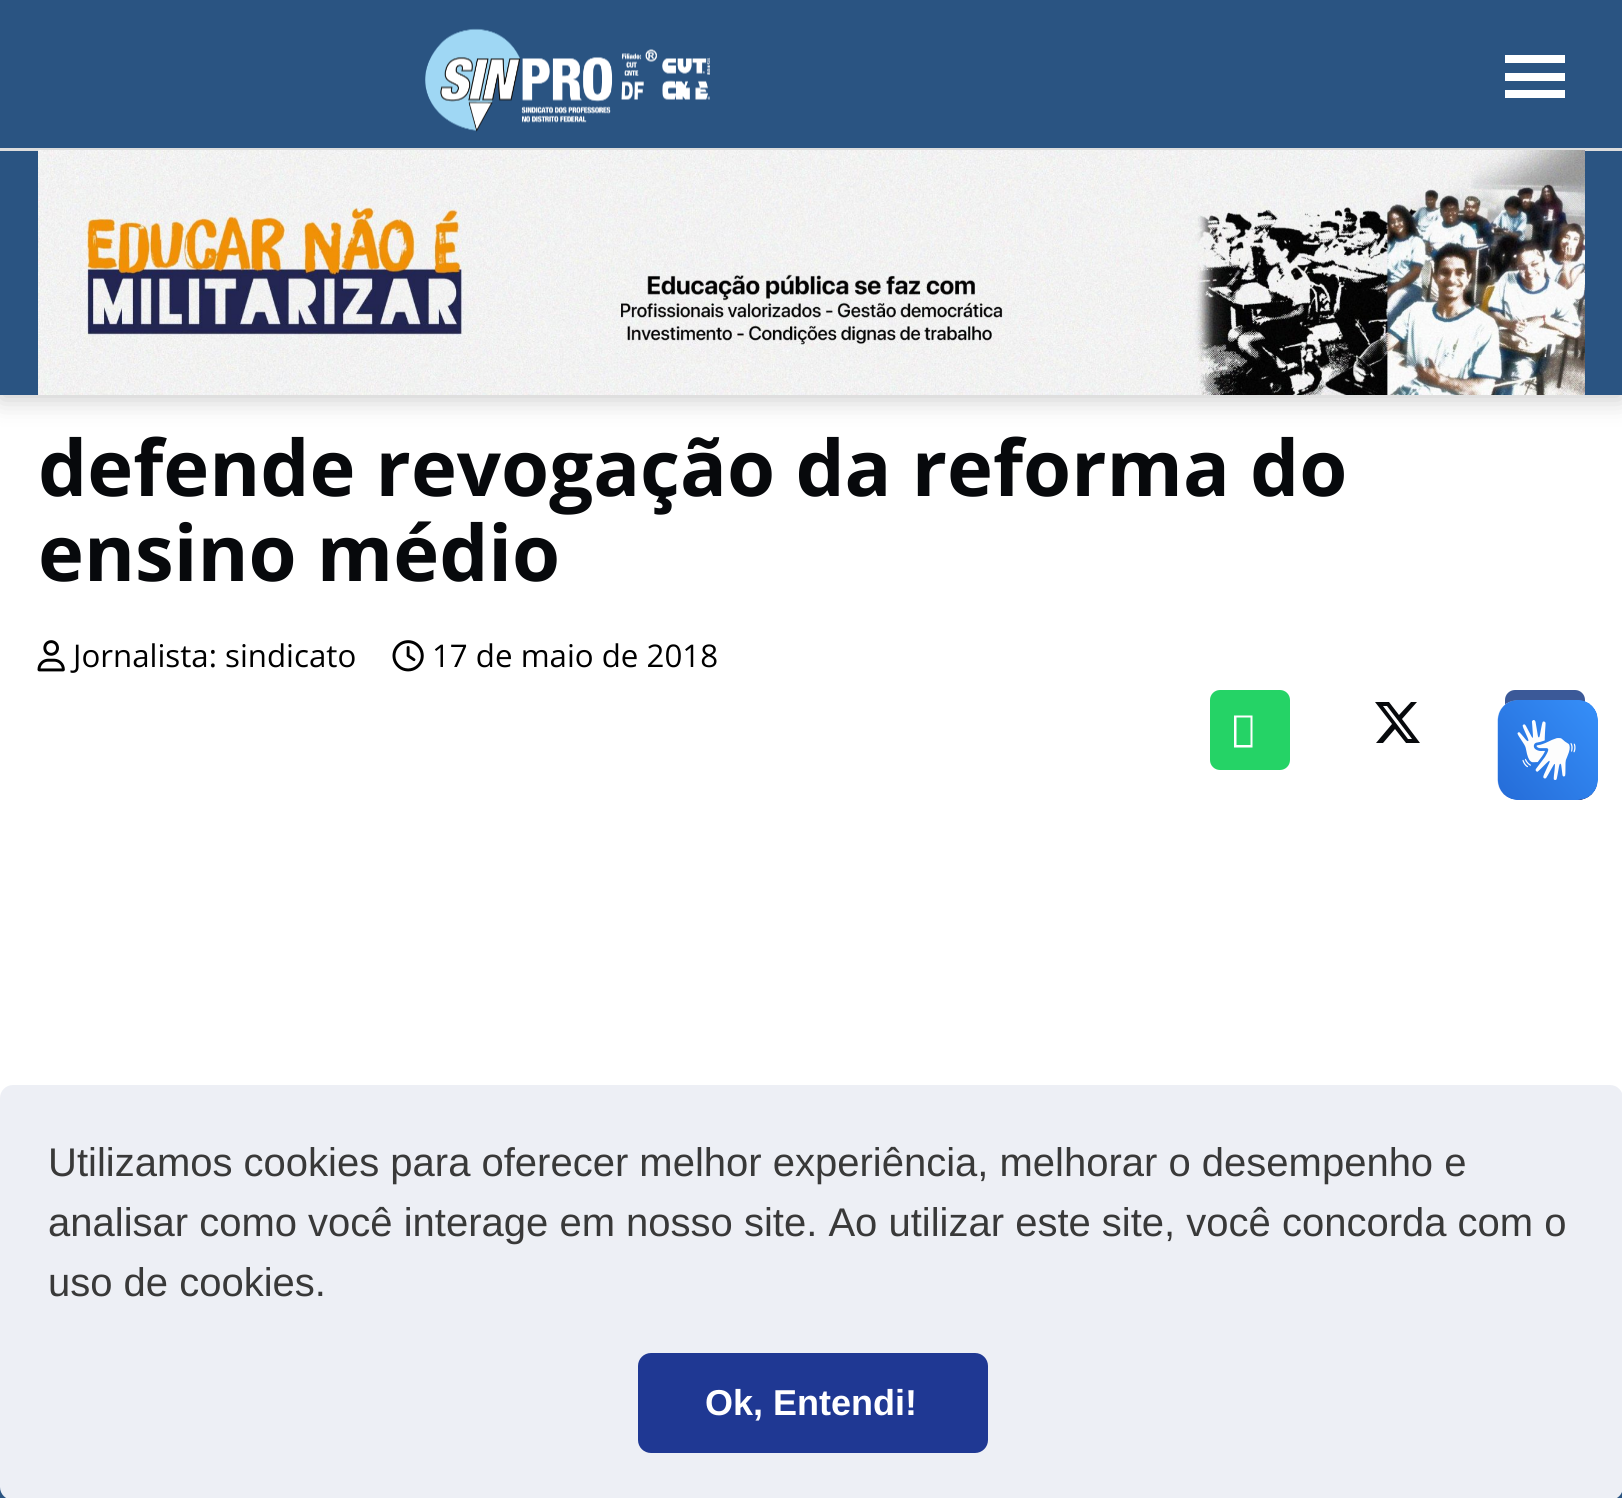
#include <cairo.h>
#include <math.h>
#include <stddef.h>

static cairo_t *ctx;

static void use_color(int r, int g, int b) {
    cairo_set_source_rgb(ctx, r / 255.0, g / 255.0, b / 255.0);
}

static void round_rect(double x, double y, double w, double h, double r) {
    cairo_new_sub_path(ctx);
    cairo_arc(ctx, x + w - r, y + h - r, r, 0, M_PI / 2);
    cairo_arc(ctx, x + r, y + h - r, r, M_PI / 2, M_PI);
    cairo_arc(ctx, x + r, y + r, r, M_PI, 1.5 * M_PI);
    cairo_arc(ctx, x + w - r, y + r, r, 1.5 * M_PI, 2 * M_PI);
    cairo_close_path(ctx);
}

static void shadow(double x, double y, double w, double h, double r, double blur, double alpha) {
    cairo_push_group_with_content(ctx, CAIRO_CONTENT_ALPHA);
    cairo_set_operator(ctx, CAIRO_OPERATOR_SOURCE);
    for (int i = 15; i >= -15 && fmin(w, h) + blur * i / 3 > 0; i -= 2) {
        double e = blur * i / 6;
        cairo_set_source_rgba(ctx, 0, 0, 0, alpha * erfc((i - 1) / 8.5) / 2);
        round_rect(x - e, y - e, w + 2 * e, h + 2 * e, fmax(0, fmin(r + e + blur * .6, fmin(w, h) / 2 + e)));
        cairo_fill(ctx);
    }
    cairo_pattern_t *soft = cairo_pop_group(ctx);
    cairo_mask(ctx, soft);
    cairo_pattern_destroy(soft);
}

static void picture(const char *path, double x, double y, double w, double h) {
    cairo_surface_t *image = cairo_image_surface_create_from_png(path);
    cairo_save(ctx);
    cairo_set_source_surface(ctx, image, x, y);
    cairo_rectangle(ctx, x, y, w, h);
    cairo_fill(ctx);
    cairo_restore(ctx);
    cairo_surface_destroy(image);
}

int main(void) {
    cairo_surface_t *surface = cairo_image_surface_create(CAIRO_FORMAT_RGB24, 1622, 1498);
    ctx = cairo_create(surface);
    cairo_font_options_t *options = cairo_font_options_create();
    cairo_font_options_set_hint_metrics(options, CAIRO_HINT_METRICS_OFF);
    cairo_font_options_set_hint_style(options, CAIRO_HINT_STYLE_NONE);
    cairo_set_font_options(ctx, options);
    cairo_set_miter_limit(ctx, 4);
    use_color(255, 255, 255);
    cairo_paint(ctx);
    use_color(0, 0, 0);
    shadow(0, 5, 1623, 395, 0, 12.5, 0.2);
    use_color(42, 84, 130);
    cairo_rectangle(ctx, 0, 0, 1622, 395);
    cairo_fill(ctx);
    use_color(221, 221, 221);
    cairo_rectangle(ctx, 0, 148, 1622, 3);
    cairo_fill(ctx);
    picture("img1.png", 425, 28, 285, 104);
    use_color(255, 255, 255);
    cairo_rectangle(ctx, 1505, 55, 60, 8);
    cairo_fill(ctx);
    cairo_rectangle(ctx, 1505, 73, 60, 8);
    cairo_fill(ctx);
    cairo_rectangle(ctx, 1505, 90, 60, 8);
    cairo_fill(ctx);
    picture("img2.png", 38, 150, 1547, 245);
    cairo_select_font_face(ctx, "Open Sans", CAIRO_FONT_SLANT_NORMAL, CAIRO_FONT_WEIGHT_BOLD);
    cairo_set_font_size(ctx, 77.75);
    use_color(7, 9, 12);
    cairo_move_to(ctx, 38, 496);
    cairo_show_text(ctx, "defende revogação da reforma do");
    cairo_move_to(ctx, 38, 581);
    cairo_show_text(ctx, "ensino médio");
    picture("img3.png", 37, 640, 28, 32);
    cairo_select_font_face(ctx, "Open Sans", CAIRO_FONT_SLANT_NORMAL, CAIRO_FONT_WEIGHT_NORMAL);
    cairo_set_font_size(ctx, 31.25);
    use_color(0, 0, 0);
    cairo_move_to(ctx, 73, 667);
    cairo_show_text(ctx, "Jornalista: sindicato");
    picture("img4.png", 392, 640, 32, 32);
    cairo_move_to(ctx, 432, 667);
    cairo_show_text(ctx, "17 de maio de 2018");
    use_color(37, 211, 102);
    round_rect(1210, 690, 80, 80, 10);
    cairo_fill(ctx);
    use_color(255, 255, 255);
    cairo_new_path(ctx);
    cairo_move_to(ctx, 1234, 747.5);
    cairo_line_to(ctx, 1234, 715.5);
    cairo_line_to(ctx, 1252.5, 715.5);
    cairo_line_to(ctx, 1252.5, 747.5);
    cairo_close_path(ctx);
    cairo_move_to(ctx, 1236.5, 745);
    cairo_line_to(ctx, 1250.5, 745);
    cairo_line_to(ctx, 1250.5, 717.5);
    cairo_line_to(ctx, 1236.5, 717.5);
    cairo_close_path(ctx);
    cairo_fill(ctx);
    use_color(7, 9, 12);
    cairo_new_path(ctx);
    cairo_move_to(ctx, 1411, 702);
    cairo_line_to(ctx, 1417, 702);
    cairo_line_to(ctx, 1402, 719);
    cairo_line_to(ctx, 1420, 743);
    cairo_line_to(ctx, 1406, 743);
    cairo_line_to(ctx, 1395, 729);
    cairo_line_to(ctx, 1383, 743);
    cairo_line_to(ctx, 1376, 743);
    cairo_line_to(ctx, 1392, 724);
    cairo_line_to(ctx, 1375, 702);
    cairo_line_to(ctx, 1389, 702);
    cairo_line_to(ctx, 1399, 715);
    cairo_close_path(ctx);
    cairo_move_to(ctx, 1408, 739);
    cairo_line_to(ctx, 1412, 739);
    cairo_line_to(ctx, 1387, 706);
    cairo_line_to(ctx, 1383, 706);
    cairo_close_path(ctx);
    cairo_fill(ctx);
    use_color(59, 89, 152);
    round_rect(1505, 690, 80, 80, 10);
    cairo_fill(ctx);
    picture("img5.png", 1497, 700, 101, 100);
    picture("img6.png", 1498, 700, 100, 100);
    use_color(42, 84, 130);
    cairo_rectangle(ctx, 0, 1487, 1622, 11);
    cairo_fill(ctx);
    use_color(237, 239, 245);
    round_rect(0, 1085, 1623, 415, 13);
    cairo_fill(ctx);
    cairo_select_font_face(ctx, "Liberation Sans", CAIRO_FONT_SLANT_NORMAL, CAIRO_FONT_WEIGHT_NORMAL);
    cairo_set_font_size(ctx, 40);
    use_color(57, 57, 57);
    cairo_move_to(ctx, 48, 1176);
    cairo_show_text(ctx, "Utilizamos cookies para oferecer melhor experiência, melhorar o desempenho e");
    cairo_move_to(ctx, 48, 1236);
    cairo_show_text(ctx, "analisar como você interage em nosso site. Ao utilizar este site, você concorda com o");
    cairo_move_to(ctx, 48, 1296);
    cairo_show_text(ctx, "uso de cookies.");
    use_color(31, 56, 147);
    round_rect(638, 1353, 350, 100, 13);
    cairo_fill(ctx);
    cairo_select_font_face(ctx, "Liberation Sans", CAIRO_FONT_SLANT_NORMAL, CAIRO_FONT_WEIGHT_BOLD);
    cairo_set_font_size(ctx, 36);
    use_color(255, 255, 255);
    cairo_move_to(ctx, 705, 1415);
    cairo_show_text(ctx, "Ok, Entendi!");
    cairo_surface_write_to_png(surface, "result.png");
    cairo_font_options_destroy(options);
    cairo_destroy(ctx);
    cairo_surface_destroy(surface);
    return 0;
}
